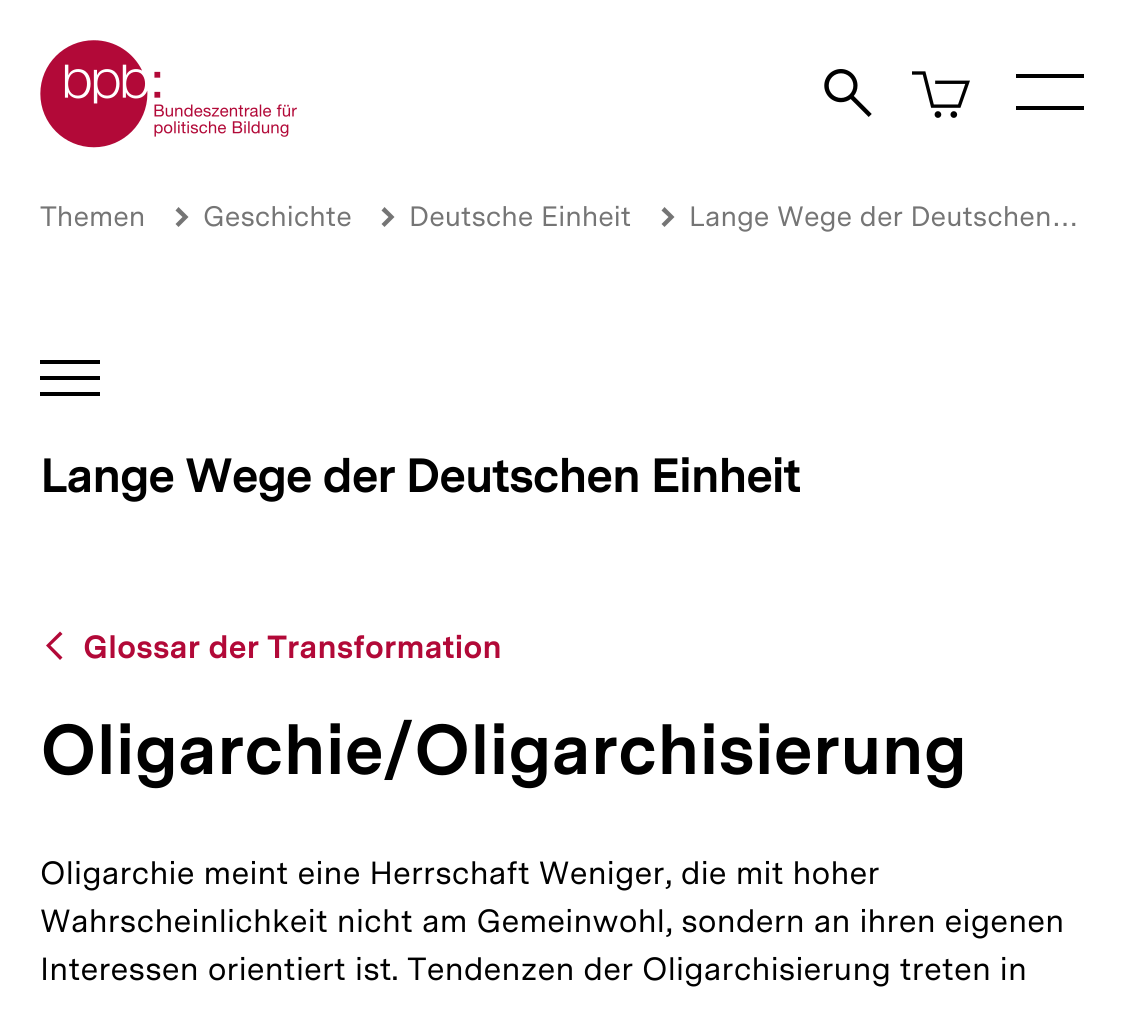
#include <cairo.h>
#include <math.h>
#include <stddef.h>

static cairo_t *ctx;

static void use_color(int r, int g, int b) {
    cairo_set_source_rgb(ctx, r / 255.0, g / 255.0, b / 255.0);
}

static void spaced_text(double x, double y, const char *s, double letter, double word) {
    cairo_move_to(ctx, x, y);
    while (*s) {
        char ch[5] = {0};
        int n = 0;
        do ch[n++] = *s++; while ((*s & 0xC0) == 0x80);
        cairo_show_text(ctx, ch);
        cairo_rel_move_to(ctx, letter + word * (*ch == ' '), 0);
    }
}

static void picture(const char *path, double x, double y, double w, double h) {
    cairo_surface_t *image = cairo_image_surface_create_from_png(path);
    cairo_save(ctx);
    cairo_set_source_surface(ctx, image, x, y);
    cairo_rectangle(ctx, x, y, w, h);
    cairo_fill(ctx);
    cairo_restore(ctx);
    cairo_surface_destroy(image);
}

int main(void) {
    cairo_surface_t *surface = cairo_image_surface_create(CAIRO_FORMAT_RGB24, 1124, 1016);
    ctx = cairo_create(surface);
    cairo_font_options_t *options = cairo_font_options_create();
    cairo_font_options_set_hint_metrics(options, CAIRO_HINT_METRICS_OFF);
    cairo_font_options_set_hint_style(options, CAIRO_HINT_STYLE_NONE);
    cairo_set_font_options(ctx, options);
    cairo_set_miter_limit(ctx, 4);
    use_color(255, 255, 255);
    cairo_paint(ctx);
    picture("img1.png", 40, 40, 257, 108);
    picture("img2.png", 824, 69, 48, 48);
    picture("img3.png", 912, 71, 58, 47);
    use_color(0, 0, 0);
    cairo_rectangle(ctx, 1016, 74, 68, 4);
    cairo_fill(ctx);
    cairo_rectangle(ctx, 1016, 106, 68, 4);
    cairo_fill(ctx);
    cairo_select_font_face(ctx, "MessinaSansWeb", CAIRO_FONT_SLANT_NORMAL, CAIRO_FONT_WEIGHT_NORMAL);
    cairo_set_font_size(ctx, 28);
    use_color(117, 117, 117);
    cairo_move_to(ctx, 40, 226);
    cairo_show_text(ctx, "Themen");
    cairo_move_to(ctx, 203, 226);
    cairo_show_text(ctx, "Geschichte");
    cairo_new_path(ctx);
    cairo_move_to(ctx, 178.5, 227);
    cairo_line_to(ctx, 175.5, 224);
    cairo_line_to(ctx, 182.5, 217);
    cairo_line_to(ctx, 175.5, 210.5);
    cairo_line_to(ctx, 178.5, 207);
    cairo_line_to(ctx, 188.5, 217);
    cairo_close_path(ctx);
    cairo_fill(ctx);
    cairo_move_to(ctx, 409, 226);
    cairo_show_text(ctx, "Deutsche Einheit");
    cairo_new_path(ctx);
    cairo_move_to(ctx, 384.5, 227);
    cairo_line_to(ctx, 381.5, 224);
    cairo_line_to(ctx, 388.5, 217);
    cairo_line_to(ctx, 381.5, 210.5);
    cairo_line_to(ctx, 384.5, 207);
    cairo_line_to(ctx, 394.5, 217);
    cairo_close_path(ctx);
    cairo_fill(ctx);
    cairo_move_to(ctx, 689, 226);
    cairo_show_text(ctx, "Lange Wege der Deutschen…");
    cairo_new_path(ctx);
    cairo_move_to(ctx, 664.5, 227);
    cairo_line_to(ctx, 661.5, 224);
    cairo_line_to(ctx, 668.5, 217);
    cairo_line_to(ctx, 661.5, 210.5);
    cairo_line_to(ctx, 664.5, 207);
    cairo_line_to(ctx, 674.5, 217);
    cairo_close_path(ctx);
    cairo_fill(ctx);
    use_color(0, 0, 0);
    cairo_rectangle(ctx, 40, 376, 60, 4);
    cairo_fill(ctx);
    cairo_rectangle(ctx, 40, 360, 60, 4);
    cairo_fill(ctx);
    cairo_rectangle(ctx, 40, 392, 60, 4);
    cairo_fill(ctx);
    cairo_select_font_face(ctx, "MessinaSansWeb", CAIRO_FONT_SLANT_NORMAL, CAIRO_FONT_WEIGHT_BOLD);
    cairo_set_font_size(ctx, 48);
    spaced_text(40, 492, "Lange Wege der Deutschen Einheit", -1.65, 0);
    use_color(178, 9, 56);
    cairo_new_path(ctx);
    cairo_move_to(ctx, 62.5, 634);
    cairo_line_to(ctx, 50.5, 645.5);
    cairo_line_to(ctx, 62.5, 657.5);
    cairo_line_to(ctx, 60, 660);
    cairo_line_to(ctx, 46, 645.5);
    cairo_line_to(ctx, 60, 631.5);
    cairo_close_path(ctx);
    cairo_fill(ctx);
    cairo_set_font_size(ctx, 32);
    spaced_text(83, 658, "Glossar der Transformation", -0.2, 0);
    cairo_set_font_size(ctx, 70);
    use_color(0, 0, 0);
    spaced_text(40, 774, "Oligarchie/Oligarchisierung", -0.6, 0);
    cairo_select_font_face(ctx, "MessinaSansWeb", CAIRO_FONT_SLANT_NORMAL, CAIRO_FONT_WEIGHT_NORMAL);
    cairo_set_font_size(ctx, 32);
    spaced_text(40, 884, "Oligarchie meint eine Herrschaft Weniger, die mit hoher", 0.18, 0);
    spaced_text(40, 932, "Wahrscheinlichkeit nicht am Gemeinwohl, sondern an ihren eigenen", 0.18, 0);
    spaced_text(40, 980, "Interessen orientiert ist. Tendenzen der Oligarchisierung treten in", 0.18, 0);
    cairo_surface_write_to_png(surface, "result.png");
    cairo_font_options_destroy(options);
    cairo_destroy(ctx);
    cairo_surface_destroy(surface);
    return 0;
}
